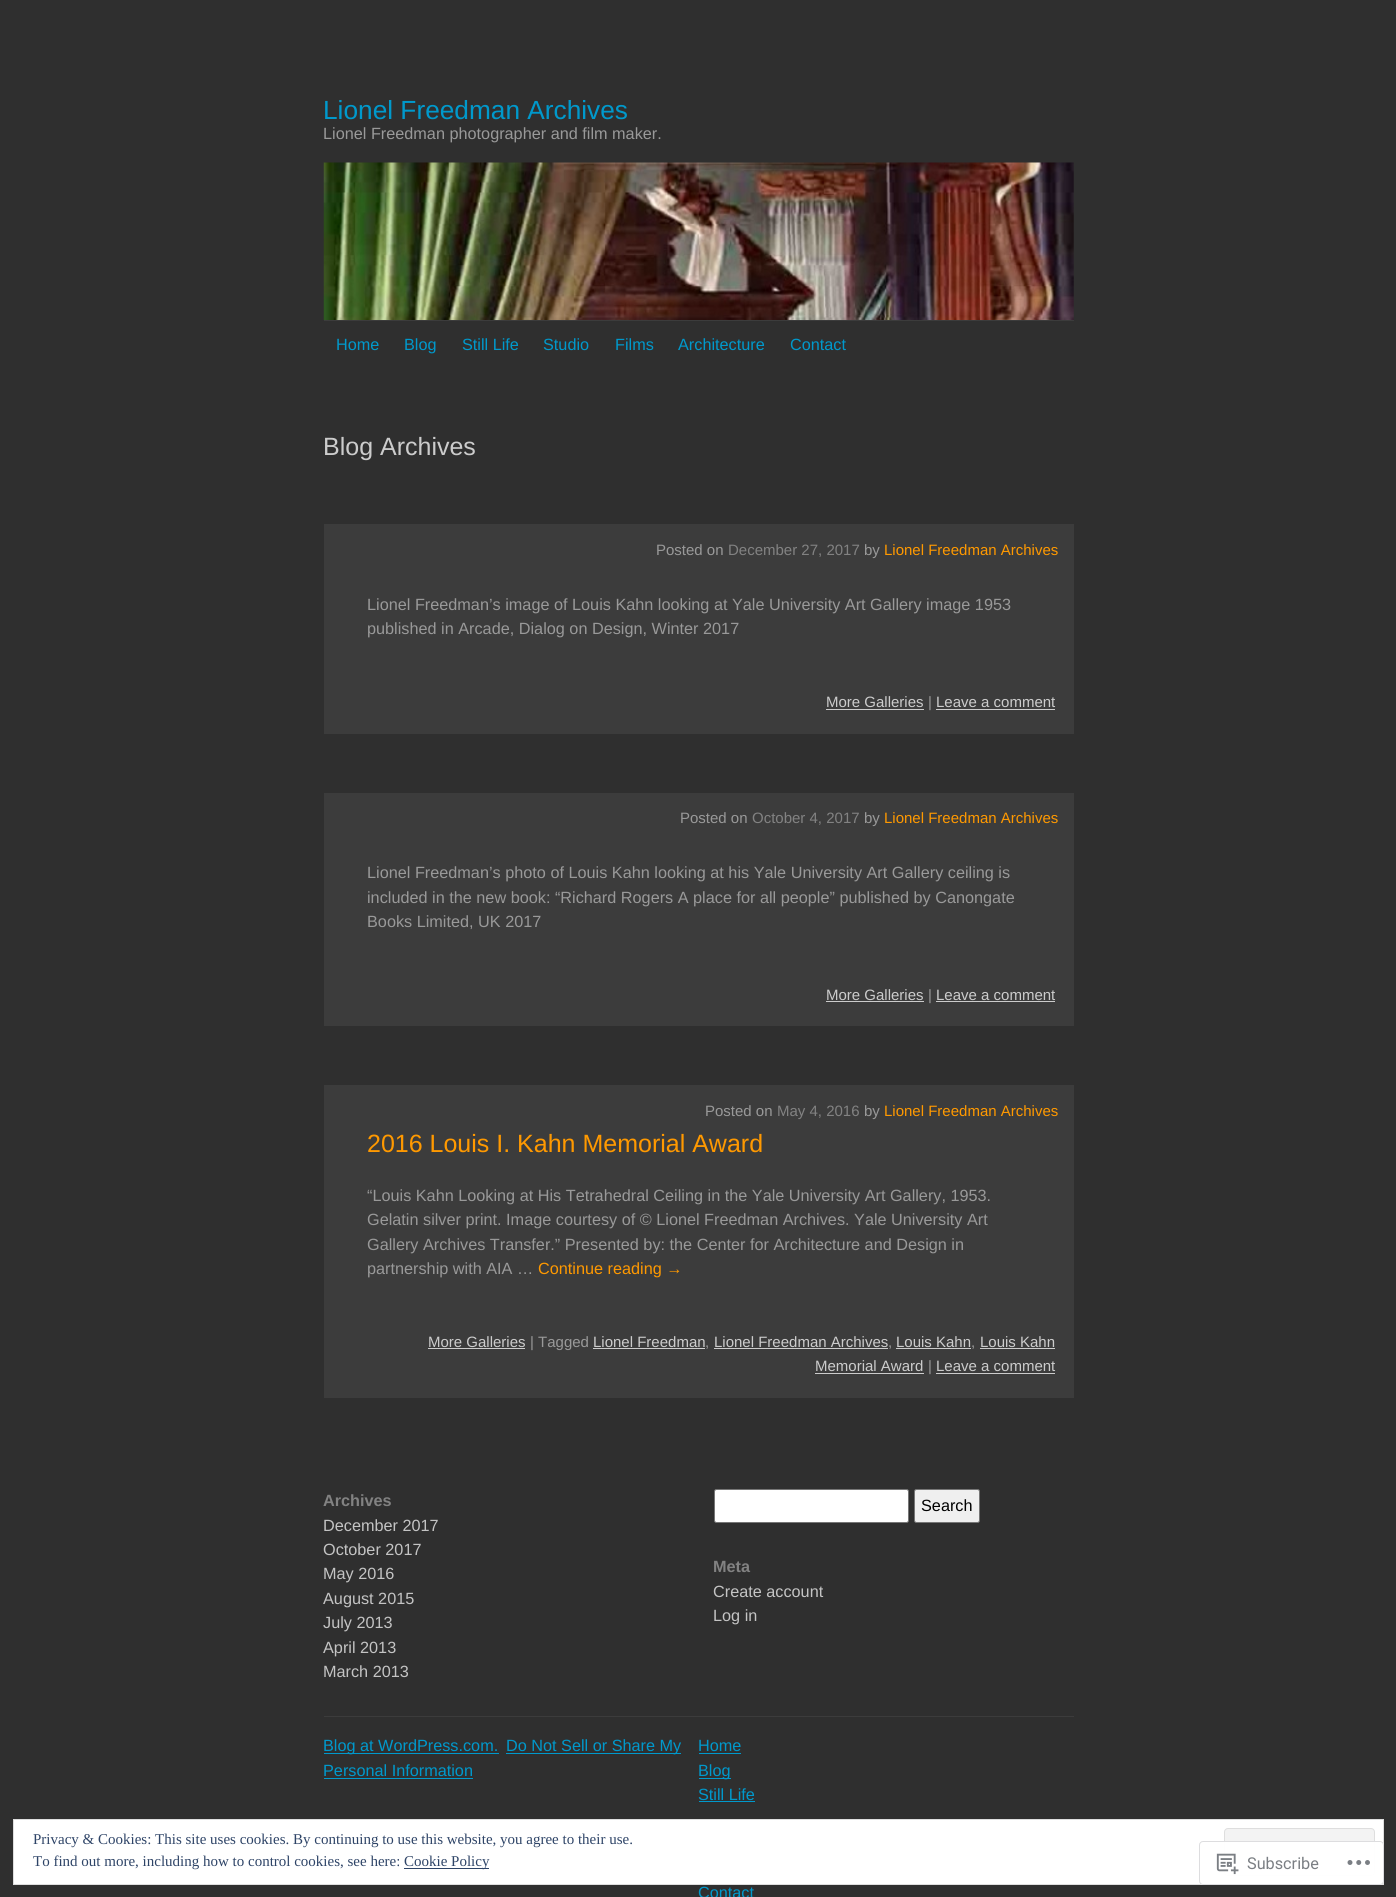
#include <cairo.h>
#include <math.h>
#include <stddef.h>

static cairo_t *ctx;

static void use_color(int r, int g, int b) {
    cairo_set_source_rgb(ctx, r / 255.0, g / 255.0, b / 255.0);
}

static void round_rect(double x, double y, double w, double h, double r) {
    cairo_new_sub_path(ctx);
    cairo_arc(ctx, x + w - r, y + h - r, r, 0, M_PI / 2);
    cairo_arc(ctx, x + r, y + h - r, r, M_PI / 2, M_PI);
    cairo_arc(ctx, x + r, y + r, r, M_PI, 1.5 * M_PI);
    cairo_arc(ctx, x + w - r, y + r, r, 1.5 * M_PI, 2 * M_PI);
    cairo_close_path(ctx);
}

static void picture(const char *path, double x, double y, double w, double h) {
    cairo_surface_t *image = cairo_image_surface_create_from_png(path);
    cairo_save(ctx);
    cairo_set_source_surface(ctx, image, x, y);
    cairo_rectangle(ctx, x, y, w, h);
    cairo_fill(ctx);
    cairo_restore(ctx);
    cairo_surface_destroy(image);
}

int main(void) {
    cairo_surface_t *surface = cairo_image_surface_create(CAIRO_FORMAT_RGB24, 1396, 1897);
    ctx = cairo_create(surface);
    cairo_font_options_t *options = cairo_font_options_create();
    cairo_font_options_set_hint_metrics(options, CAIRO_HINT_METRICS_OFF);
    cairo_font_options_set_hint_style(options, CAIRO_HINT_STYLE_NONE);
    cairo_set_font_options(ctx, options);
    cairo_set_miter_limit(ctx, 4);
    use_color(47, 47, 47);
    cairo_paint(ctx);
    cairo_select_font_face(ctx, "Liberation Sans", CAIRO_FONT_SLANT_NORMAL, CAIRO_FONT_WEIGHT_NORMAL);
    cairo_set_font_size(ctx, 26.25);
    use_color(0, 153, 204);
    cairo_move_to(ctx, 323, 119);
    cairo_show_text(ctx, "Lionel Freedman Archives");
    cairo_set_font_size(ctx, 16.25);
    use_color(153, 153, 153);
    cairo_move_to(ctx, 323, 139);
    cairo_show_text(ctx, "Lionel Freedman photographer and film maker.");
    picture("img1.png", 323, 162, 751, 158);
    use_color(60, 60, 60);
    cairo_rectangle(ctx, 324, 320, 750, 1);
    cairo_fill(ctx);
    use_color(0, 153, 204);
    cairo_move_to(ctx, 336, 350);
    cairo_show_text(ctx, "Home");
    cairo_move_to(ctx, 404, 350);
    cairo_show_text(ctx, "Blog");
    cairo_move_to(ctx, 462, 350);
    cairo_show_text(ctx, "Still Life");
    cairo_move_to(ctx, 543, 350);
    cairo_show_text(ctx, "Studio");
    cairo_move_to(ctx, 615, 350);
    cairo_show_text(ctx, "Films");
    cairo_move_to(ctx, 678, 350);
    cairo_show_text(ctx, "Architecture");
    cairo_move_to(ctx, 790, 350);
    cairo_show_text(ctx, "Contact");
    cairo_set_font_size(ctx, 25);
    use_color(204, 204, 204);
    cairo_move_to(ctx, 323, 455);
    cairo_show_text(ctx, "Blog Archives");
    use_color(60, 60, 60);
    cairo_rectangle(ctx, 324, 524, 750, 210);
    cairo_fill(ctx);
    cairo_set_font_size(ctx, 15);
    use_color(153, 153, 153);
    cairo_move_to(ctx, 656, 555);
    cairo_show_text(ctx, "Posted on");
    use_color(130, 130, 130);
    cairo_move_to(ctx, 728, 555);
    cairo_show_text(ctx, "December 27, 2017");
    use_color(153, 153, 153);
    cairo_move_to(ctx, 864, 555);
    cairo_show_text(ctx, "by");
    use_color(255, 153, 0);
    cairo_move_to(ctx, 884, 555);
    cairo_show_text(ctx, "Lionel Freedman Archives");
    cairo_set_font_size(ctx, 16.25);
    use_color(153, 153, 153);
    cairo_move_to(ctx, 367, 610);
    cairo_show_text(ctx, "Lionel Freedman’s image of Louis Kahn looking at Yale University Art Gallery image 1953");
    cairo_move_to(ctx, 367, 634);
    cairo_show_text(ctx, "published in Arcade, Dialog on Design, Winter 2017");
    cairo_set_font_size(ctx, 15);
    use_color(204, 204, 204);
    cairo_move_to(ctx, 826, 707);
    cairo_show_text(ctx, "More Galleries");
    cairo_rectangle(ctx, 826, 709, 98, 1);
    cairo_fill(ctx);
    use_color(153, 153, 153);
    cairo_move_to(ctx, 928, 707);
    cairo_show_text(ctx, "|");
    use_color(204, 204, 204);
    cairo_move_to(ctx, 936, 707);
    cairo_show_text(ctx, "Leave a comment");
    cairo_rectangle(ctx, 936, 709, 119, 1);
    cairo_fill(ctx);
    use_color(60, 60, 60);
    cairo_rectangle(ctx, 324, 793, 750, 233);
    cairo_fill(ctx);
    use_color(153, 153, 153);
    cairo_move_to(ctx, 680, 823);
    cairo_show_text(ctx, "Posted on");
    use_color(130, 130, 130);
    cairo_move_to(ctx, 752, 823);
    cairo_show_text(ctx, "October 4, 2017");
    use_color(153, 153, 153);
    cairo_move_to(ctx, 864, 823);
    cairo_show_text(ctx, "by");
    use_color(255, 153, 0);
    cairo_move_to(ctx, 884, 823);
    cairo_show_text(ctx, "Lionel Freedman Archives");
    cairo_set_font_size(ctx, 16.25);
    use_color(153, 153, 153);
    cairo_move_to(ctx, 367, 878);
    cairo_show_text(ctx, "Lionel Freedman’s photo of Louis Kahn looking at his Yale University Art Gallery ceiling is");
    cairo_move_to(ctx, 367, 903);
    cairo_show_text(ctx, "included in the new book: “Richard Rogers A place for all people” published by Canongate");
    cairo_move_to(ctx, 367, 927);
    cairo_show_text(ctx, "Books Limited, UK 2017");
    cairo_set_font_size(ctx, 15);
    use_color(204, 204, 204);
    cairo_move_to(ctx, 826, 1000);
    cairo_show_text(ctx, "More Galleries");
    cairo_rectangle(ctx, 826, 1001, 98, 1);
    cairo_fill(ctx);
    use_color(153, 153, 153);
    cairo_move_to(ctx, 928, 1000);
    cairo_show_text(ctx, "|");
    use_color(204, 204, 204);
    cairo_move_to(ctx, 936, 1000);
    cairo_show_text(ctx, "Leave a comment");
    cairo_rectangle(ctx, 936, 1001, 119, 1);
    cairo_fill(ctx);
    use_color(60, 60, 60);
    cairo_rectangle(ctx, 324, 1085, 750, 313);
    cairo_fill(ctx);
    use_color(153, 153, 153);
    cairo_move_to(ctx, 705, 1116);
    cairo_show_text(ctx, "Posted on");
    use_color(130, 130, 130);
    cairo_move_to(ctx, 777, 1116);
    cairo_show_text(ctx, "May 4, 2016");
    use_color(153, 153, 153);
    cairo_move_to(ctx, 864, 1116);
    cairo_show_text(ctx, "by");
    use_color(255, 153, 0);
    cairo_move_to(ctx, 884, 1116);
    cairo_show_text(ctx, "Lionel Freedman Archives");
    cairo_set_font_size(ctx, 25);
    cairo_move_to(ctx, 367, 1152);
    cairo_show_text(ctx, "2016 Louis I. Kahn Memorial Award");
    cairo_set_font_size(ctx, 16.25);
    use_color(153, 153, 153);
    cairo_move_to(ctx, 367, 1201);
    cairo_show_text(ctx, "“Louis Kahn Looking at His Tetrahedral Ceiling in the Yale University Art Gallery, 1953.");
    cairo_move_to(ctx, 367, 1225);
    cairo_show_text(ctx, "Gelatin silver print. Image courtesy of © Lionel Freedman Archives. Yale University Art");
    cairo_move_to(ctx, 367, 1250);
    cairo_show_text(ctx, "Gallery Archives Transfer.” Presented by: the Center for Architecture and Design in");
    cairo_move_to(ctx, 367, 1274);
    cairo_show_text(ctx, "partnership with AIA …");
    use_color(255, 153, 0);
    cairo_move_to(ctx, 538, 1274);
    cairo_show_text(ctx, "Continue reading →");
    cairo_set_font_size(ctx, 15);
    use_color(204, 204, 204);
    cairo_move_to(ctx, 428, 1347);
    cairo_show_text(ctx, "More Galleries");
    cairo_rectangle(ctx, 428, 1348, 97, 1);
    cairo_fill(ctx);
    use_color(153, 153, 153);
    cairo_move_to(ctx, 530, 1347);
    cairo_show_text(ctx, "| Tagged");
    use_color(204, 204, 204);
    cairo_move_to(ctx, 593, 1347);
    cairo_show_text(ctx, "Lionel Freedman");
    use_color(153, 153, 153);
    cairo_move_to(ctx, 705, 1347);
    cairo_show_text(ctx, ",");
    use_color(204, 204, 204);
    cairo_rectangle(ctx, 593, 1348, 112, 1);
    cairo_fill(ctx);
    cairo_move_to(ctx, 714, 1347);
    cairo_show_text(ctx, "Lionel Freedman Archives");
    use_color(153, 153, 153);
    cairo_move_to(ctx, 888, 1347);
    cairo_show_text(ctx, ",");
    use_color(204, 204, 204);
    cairo_rectangle(ctx, 714, 1348, 174, 1);
    cairo_fill(ctx);
    cairo_move_to(ctx, 896, 1347);
    cairo_show_text(ctx, "Louis Kahn");
    use_color(153, 153, 153);
    cairo_move_to(ctx, 971, 1347);
    cairo_show_text(ctx, ",");
    use_color(204, 204, 204);
    cairo_rectangle(ctx, 896, 1348, 75, 1);
    cairo_fill(ctx);
    cairo_rectangle(ctx, 980, 1348, 75, 1);
    cairo_fill(ctx);
    cairo_move_to(ctx, 980, 1347);
    cairo_show_text(ctx, "Louis Kahn");
    cairo_move_to(ctx, 815, 1371);
    cairo_show_text(ctx, "Memorial Award");
    cairo_rectangle(ctx, 815, 1373, 109, 1);
    cairo_fill(ctx);
    use_color(153, 153, 153);
    cairo_move_to(ctx, 928, 1371);
    cairo_show_text(ctx, "|");
    use_color(204, 204, 204);
    cairo_move_to(ctx, 936, 1371);
    cairo_show_text(ctx, "Leave a comment");
    cairo_rectangle(ctx, 936, 1373, 119, 1);
    cairo_fill(ctx);
    cairo_select_font_face(ctx, "Liberation Sans", CAIRO_FONT_SLANT_NORMAL, CAIRO_FONT_WEIGHT_BOLD);
    cairo_set_font_size(ctx, 16.25);
    use_color(130, 130, 130);
    cairo_move_to(ctx, 323, 1506);
    cairo_show_text(ctx, "Archives");
    cairo_select_font_face(ctx, "Liberation Sans", CAIRO_FONT_SLANT_NORMAL, CAIRO_FONT_WEIGHT_NORMAL);
    use_color(196, 196, 196);
    cairo_move_to(ctx, 323, 1531);
    cairo_show_text(ctx, "December 2017");
    cairo_move_to(ctx, 323, 1555);
    cairo_show_text(ctx, "October 2017");
    cairo_move_to(ctx, 323, 1579);
    cairo_show_text(ctx, "May 2016");
    cairo_move_to(ctx, 323, 1604);
    cairo_show_text(ctx, "August 2015");
    cairo_move_to(ctx, 323, 1628);
    cairo_show_text(ctx, "July 2013");
    cairo_move_to(ctx, 323, 1653);
    cairo_show_text(ctx, "April 2013");
    cairo_move_to(ctx, 323, 1677);
    cairo_show_text(ctx, "March 2013");
    use_color(255, 255, 255);
    round_rect(714.5, 1489.5, 194, 33, 2);
    cairo_fill_preserve(ctx);
    use_color(118, 118, 118);
    cairo_set_line_width(ctx, 1);
    cairo_stroke(ctx);
    use_color(239, 239, 239);
    round_rect(914.5, 1489.5, 65, 33, 2);
    cairo_fill_preserve(ctx);
    use_color(118, 118, 118);
    cairo_stroke(ctx);
    use_color(0, 0, 0);
    cairo_move_to(ctx, 921, 1511);
    cairo_show_text(ctx, "Search");
    cairo_select_font_face(ctx, "Liberation Sans", CAIRO_FONT_SLANT_NORMAL, CAIRO_FONT_WEIGHT_BOLD);
    use_color(130, 130, 130);
    cairo_move_to(ctx, 713, 1572);
    cairo_show_text(ctx, "Meta");
    cairo_select_font_face(ctx, "Liberation Sans", CAIRO_FONT_SLANT_NORMAL, CAIRO_FONT_WEIGHT_NORMAL);
    use_color(196, 196, 196);
    cairo_move_to(ctx, 713, 1597);
    cairo_show_text(ctx, "Create account");
    cairo_move_to(ctx, 713, 1621);
    cairo_show_text(ctx, "Log in");
    use_color(60, 60, 60);
    cairo_rectangle(ctx, 324, 1716, 750, 1);
    cairo_fill(ctx);
    use_color(0, 153, 204);
    cairo_rectangle(ctx, 324, 1753, 175, 1);
    cairo_fill(ctx);
    cairo_move_to(ctx, 323, 1751);
    cairo_show_text(ctx, "Blog at WordPress.com.");
    cairo_rectangle(ctx, 506, 1753, 175, 1);
    cairo_fill(ctx);
    cairo_move_to(ctx, 506, 1751);
    cairo_show_text(ctx, "Do Not Sell or Share My");
    cairo_move_to(ctx, 323, 1776);
    cairo_show_text(ctx, "Personal Information");
    cairo_rectangle(ctx, 324, 1778, 149, 1);
    cairo_fill(ctx);
    cairo_move_to(ctx, 698, 1751);
    cairo_show_text(ctx, "Home");
    cairo_rectangle(ctx, 699, 1753, 42, 1);
    cairo_fill(ctx);
    cairo_rectangle(ctx, 699, 1778, 32, 1);
    cairo_fill(ctx);
    cairo_move_to(ctx, 698, 1776);
    cairo_show_text(ctx, "Blog");
    cairo_move_to(ctx, 698, 1800);
    cairo_show_text(ctx, "Still Life");
    cairo_rectangle(ctx, 699, 1801, 56, 1);
    cairo_fill(ctx);
    cairo_move_to(ctx, 698, 1898);
    cairo_show_text(ctx, "Contact");
    use_color(255, 255, 255);
    cairo_rectangle(ctx, 13.5, 1819.5, 1370, 65);
    cairo_fill_preserve(ctx);
    use_color(222, 222, 222);
    cairo_stroke(ctx);
    cairo_select_font_face(ctx, "Liberation Serif", CAIRO_FONT_SLANT_NORMAL, CAIRO_FONT_WEIGHT_NORMAL);
    cairo_set_font_size(ctx, 15);
    use_color(46, 68, 103);
    cairo_move_to(ctx, 33, 1844);
    cairo_show_text(ctx, "Privacy & Cookies: This site uses cookies. By continuing to use this website, you agree to their use.");
    use_color(243, 243, 243);
    round_rect(1224.5, 1828.5, 150, 47, 3.5);
    cairo_fill_preserve(ctx);
    use_color(222, 222, 222);
    cairo_stroke(ctx);
    use_color(46, 68, 103);
    cairo_move_to(ctx, 33, 1866);
    cairo_show_text(ctx, "To find out more, including how to control cookies, see here:");
    cairo_rectangle(ctx, 404, 1868, 85, 1);
    cairo_fill(ctx);
    cairo_move_to(ctx, 404, 1866);
    cairo_show_text(ctx, "Cookie Policy");
    cairo_set_source_rgba(ctx, 1, 1, 1, 0.98);
    round_rect(1199, 1841, 185, 44, 4);
    cairo_fill(ctx);
    round_rect(1199.5, 1841.5, 184, 43, 3.5);
    cairo_set_source_rgba(ctx, 0.863, 0.863, 0.871, 0.98);
    cairo_stroke(ctx);
    picture("img2.png", 1216, 1853, 23, 22);
    cairo_select_font_face(ctx, "Roboto", CAIRO_FONT_SLANT_NORMAL, CAIRO_FONT_WEIGHT_NORMAL);
    cairo_set_font_size(ctx, 16.25);
    use_color(123, 127, 132);
    cairo_move_to(ctx, 1247, 1869);
    cairo_show_text(ctx, "Subscribe");
    picture("img3.png", 1347, 1860, 23, 5);
    cairo_surface_write_to_png(surface, "result.png");
    cairo_font_options_destroy(options);
    cairo_destroy(ctx);
    cairo_surface_destroy(surface);
    return 0;
}
